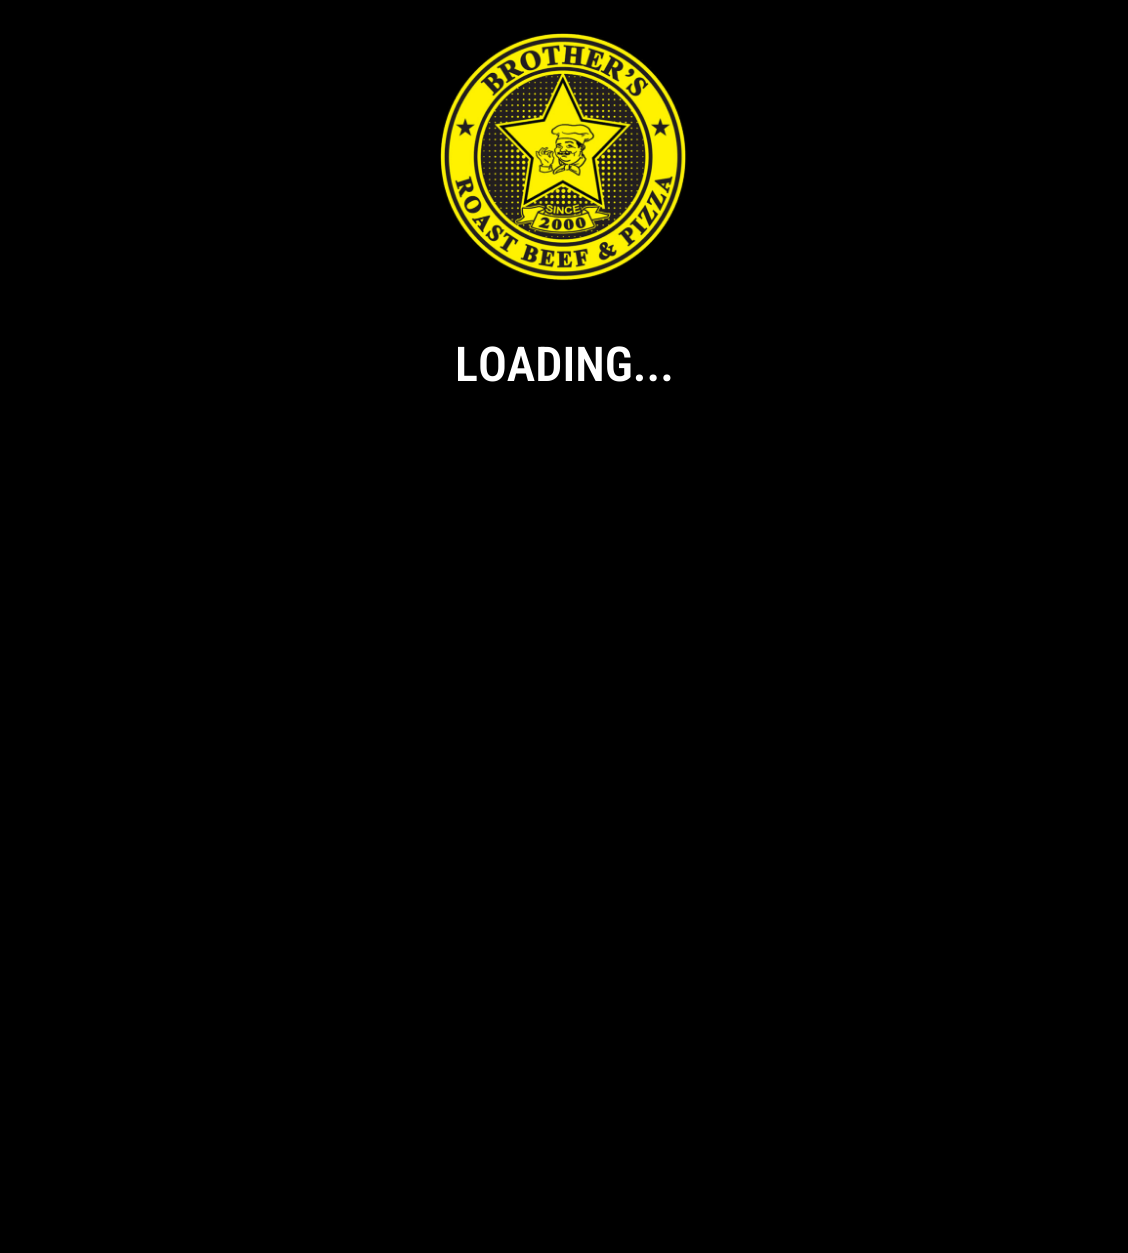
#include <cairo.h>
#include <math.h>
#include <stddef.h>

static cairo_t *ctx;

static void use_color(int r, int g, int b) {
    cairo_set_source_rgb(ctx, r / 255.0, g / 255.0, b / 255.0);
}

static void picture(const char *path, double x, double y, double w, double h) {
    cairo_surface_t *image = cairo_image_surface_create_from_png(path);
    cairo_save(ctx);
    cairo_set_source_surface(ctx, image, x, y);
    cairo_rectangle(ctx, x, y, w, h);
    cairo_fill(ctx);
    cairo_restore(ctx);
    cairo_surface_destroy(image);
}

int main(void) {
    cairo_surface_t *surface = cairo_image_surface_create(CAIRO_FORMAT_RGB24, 1128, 1253);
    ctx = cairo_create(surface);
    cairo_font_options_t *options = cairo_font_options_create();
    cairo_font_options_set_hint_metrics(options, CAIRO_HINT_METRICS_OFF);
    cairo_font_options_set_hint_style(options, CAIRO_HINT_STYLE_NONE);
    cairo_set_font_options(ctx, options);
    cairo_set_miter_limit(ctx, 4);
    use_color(0, 0, 0);
    cairo_paint(ctx);
    picture("img1.png", 440, 33, 247, 248);
    cairo_select_font_face(ctx, "Roboto Condensed SemiBold", CAIRO_FONT_SLANT_NORMAL, CAIRO_FONT_WEIGHT_NORMAL);
    cairo_set_font_size(ctx, 48);
    use_color(255, 255, 255);
    cairo_move_to(ctx, 455, 381);
    cairo_show_text(ctx, "LOADING...");
    cairo_surface_write_to_png(surface, "result.png");
    cairo_font_options_destroy(options);
    cairo_destroy(ctx);
    cairo_surface_destroy(surface);
    return 0;
}
